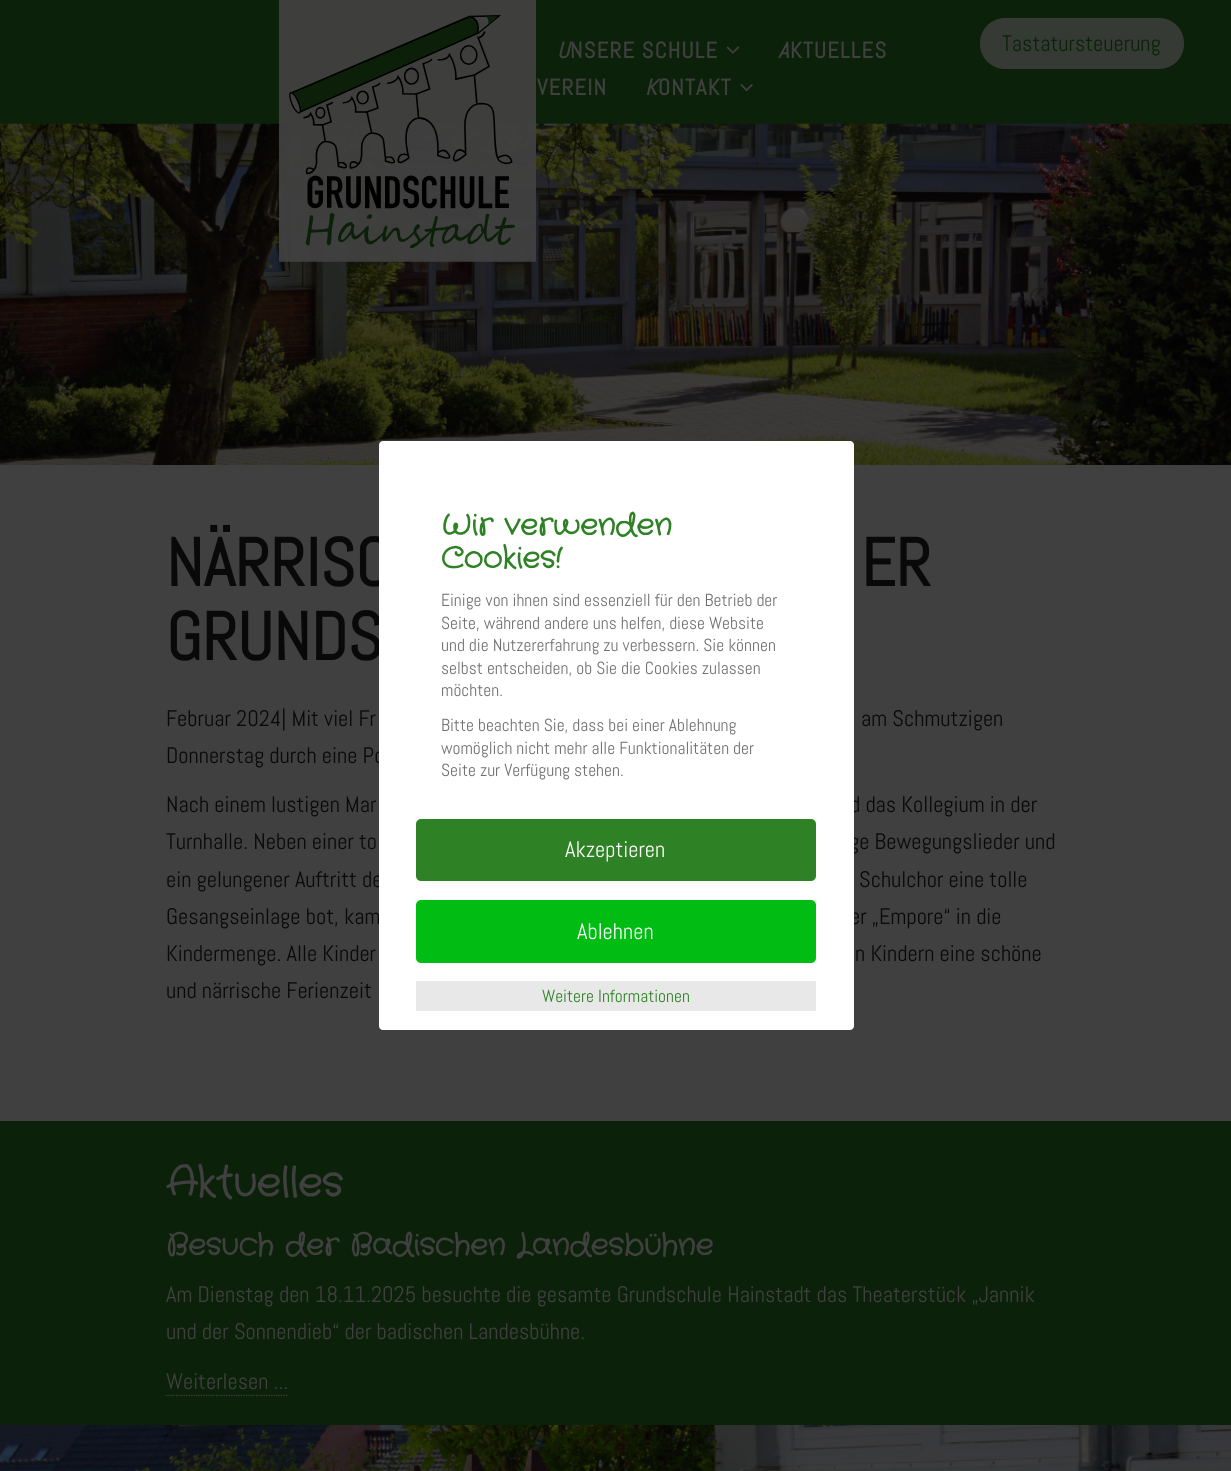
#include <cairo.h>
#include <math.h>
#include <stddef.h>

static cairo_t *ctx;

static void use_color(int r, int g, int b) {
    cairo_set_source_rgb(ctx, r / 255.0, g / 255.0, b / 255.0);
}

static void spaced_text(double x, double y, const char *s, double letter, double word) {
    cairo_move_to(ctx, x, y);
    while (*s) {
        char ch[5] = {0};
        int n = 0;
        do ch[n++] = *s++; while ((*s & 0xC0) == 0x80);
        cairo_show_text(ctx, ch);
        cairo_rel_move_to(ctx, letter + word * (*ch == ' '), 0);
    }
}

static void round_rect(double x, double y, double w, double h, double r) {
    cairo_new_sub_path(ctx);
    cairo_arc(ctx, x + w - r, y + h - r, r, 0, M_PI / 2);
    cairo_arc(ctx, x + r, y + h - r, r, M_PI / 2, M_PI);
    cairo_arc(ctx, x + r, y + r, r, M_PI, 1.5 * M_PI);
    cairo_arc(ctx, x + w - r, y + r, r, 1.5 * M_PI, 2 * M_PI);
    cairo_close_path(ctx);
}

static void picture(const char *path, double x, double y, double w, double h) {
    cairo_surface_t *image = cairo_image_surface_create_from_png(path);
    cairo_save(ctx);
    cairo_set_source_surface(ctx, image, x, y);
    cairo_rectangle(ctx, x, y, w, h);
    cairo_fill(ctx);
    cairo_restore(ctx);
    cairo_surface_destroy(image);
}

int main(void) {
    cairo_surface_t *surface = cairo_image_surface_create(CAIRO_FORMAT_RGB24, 1231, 1471);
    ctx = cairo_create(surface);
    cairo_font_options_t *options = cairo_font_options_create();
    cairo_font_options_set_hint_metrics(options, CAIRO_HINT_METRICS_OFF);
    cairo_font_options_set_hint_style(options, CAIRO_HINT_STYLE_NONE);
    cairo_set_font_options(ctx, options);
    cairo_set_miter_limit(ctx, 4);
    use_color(64, 64, 64);
    cairo_paint(ctx);
    use_color(12, 33, 9);
    cairo_rectangle(ctx, 0, 0, 1231, 124);
    cairo_fill(ctx);
    picture("img4.png", 0, 123, 1231, 342);
    picture("img1.png", 279, 0, 257, 262);
    cairo_select_font_face(ctx, "Abel", CAIRO_FONT_SLANT_ITALIC, CAIRO_FONT_WEIGHT_BOLD);
    cairo_set_font_size(ctx, 22.5);
    use_color(64, 64, 64);
    spaced_text(557, 58, "U", 1.25, 0);
    cairo_select_font_face(ctx, "Abel", CAIRO_FONT_SLANT_NORMAL, CAIRO_FONT_WEIGHT_BOLD);
    spaced_text(570, 58, "NSERE SCHULE", 1.25, 0);
    picture("img2.png", 726, 46, 14, 8);
    cairo_select_font_face(ctx, "Abel", CAIRO_FONT_SLANT_ITALIC, CAIRO_FONT_WEIGHT_BOLD);
    spaced_text(778, 58, "A", 1.25, 0);
    cairo_select_font_face(ctx, "Abel", CAIRO_FONT_SLANT_NORMAL, CAIRO_FONT_WEIGHT_BOLD);
    spaced_text(790, 58, "KTUELLES", 1.25, 0);
    spaced_text(537, 95, "VEREIN", 1.25, 0);
    cairo_select_font_face(ctx, "Abel", CAIRO_FONT_SLANT_ITALIC, CAIRO_FONT_WEIGHT_BOLD);
    spaced_text(645, 95, "K", 1.25, 0);
    cairo_select_font_face(ctx, "Abel", CAIRO_FONT_SLANT_NORMAL, CAIRO_FONT_WEIGHT_BOLD);
    spaced_text(658, 95, "ONTAKT", 1.25, 0);
    picture("img3.png", 740, 84, 13, 8);
    cairo_set_font_size(ctx, 67.5);
    use_color(9, 9, 9);
    cairo_move_to(ctx, 166, 586);
    cairo_show_text(ctx, "NÄRRISC");
    cairo_move_to(ctx, 861, 586);
    cairo_show_text(ctx, "ER");
    cairo_move_to(ctx, 166, 660);
    cairo_show_text(ctx, "GRUNDS");
    cairo_select_font_face(ctx, "Abel", CAIRO_FONT_SLANT_NORMAL, CAIRO_FONT_WEIGHT_NORMAL);
    cairo_set_font_size(ctx, 22.5);
    cairo_move_to(ctx, 166, 726);
    cairo_show_text(ctx, "Februar 2024| Mit viel Fr");
    cairo_move_to(ctx, 861, 726);
    cairo_show_text(ctx, "am Schmutzigen");
    cairo_move_to(ctx, 166, 763);
    cairo_show_text(ctx, "Donnerstag durch eine Po");
    cairo_move_to(ctx, 166, 812);
    cairo_show_text(ctx, "Nach einem lustigen Mar");
    cairo_move_to(ctx, 850, 812);
    cairo_show_text(ctx, "d das Kollegium in der");
    cairo_move_to(ctx, 166, 849);
    cairo_show_text(ctx, "Turnhalle. Neben einer to");
    cairo_move_to(ctx, 849, 849);
    cairo_show_text(ctx, "ge Bewegungslieder und");
    cairo_move_to(ctx, 166, 887);
    cairo_show_text(ctx, "ein gelungener Auftritt de");
    cairo_move_to(ctx, 859, 887);
    cairo_show_text(ctx, "Schulchor eine tolle");
    cairo_move_to(ctx, 166, 924);
    cairo_show_text(ctx, "Gesangseinlage bot, kam");
    cairo_move_to(ctx, 850, 924);
    cairo_show_text(ctx, "er „Empore“ in die");
    cairo_move_to(ctx, 166, 961);
    cairo_show_text(ctx, "Kindermenge. Alle Kinder");
    cairo_move_to(ctx, 855, 961);
    cairo_show_text(ctx, "n Kindern eine schöne");
    cairo_move_to(ctx, 166, 998);
    cairo_show_text(ctx, "und närrische Ferienzeit");
    use_color(12, 33, 9);
    cairo_rectangle(ctx, 0, 1121, 1231, 304);
    cairo_fill(ctx);
    cairo_select_font_face(ctx, "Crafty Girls", CAIRO_FONT_SLANT_NORMAL, CAIRO_FONT_WEIGHT_BOLD);
    cairo_set_font_size(ctx, 40.5);
    use_color(64, 64, 64);
    cairo_move_to(ctx, 166, 1195);
    cairo_show_text(ctx, "Aktuelles");
    cairo_set_font_size(ctx, 30);
    cairo_move_to(ctx, 166, 1254);
    cairo_show_text(ctx, "Besuch der Badischen Landesbühne");
    cairo_select_font_face(ctx, "Abel", CAIRO_FONT_SLANT_NORMAL, CAIRO_FONT_WEIGHT_NORMAL);
    cairo_set_font_size(ctx, 22.5);
    cairo_move_to(ctx, 166, 1302);
    cairo_show_text(ctx, "Am Dienstag den 18.11.2025 besuchte die gesamte Grundschule Hainstadt das Theaterstück „Jannik");
    cairo_move_to(ctx, 166, 1339);
    cairo_show_text(ctx, "und der Sonnendieb“ der badischen Landesbühne.");
    cairo_move_to(ctx, 166, 1389);
    cairo_show_text(ctx, "Weiterlesen ...");
    cairo_new_path(ctx);
    cairo_move_to(ctx, 166, 1395.5);
    cairo_line_to(ctx, 287.5, 1395.5);
    cairo_set_line_width(ctx, 1.2);
    cairo_set_dash(ctx, (double[]){1.25, 1.25}, 2, 0);
    cairo_stroke(ctx);
    picture("img5.png", 0, 1425, 1231, 46);
    use_color(53, 58, 53);
    round_rect(980, 18, 204, 51, 25);
    cairo_fill(ctx);
    use_color(12, 33, 9);
    cairo_move_to(ctx, 1002, 51);
    cairo_show_text(ctx, "Tastatursteuerung");
    use_color(255, 255, 255);
    round_rect(379, 441, 475, 589, 4);
    cairo_fill(ctx);
    cairo_select_font_face(ctx, "Crafty Girls", CAIRO_FONT_SLANT_NORMAL, CAIRO_FONT_WEIGHT_BOLD);
    cairo_set_font_size(ctx, 30);
    use_color(46, 130, 37);
    cairo_move_to(ctx, 441, 534);
    cairo_show_text(ctx, "Wir verwenden");
    cairo_move_to(ctx, 441, 567);
    cairo_show_text(ctx, "Cookies!");
    cairo_select_font_face(ctx, "Abel", CAIRO_FONT_SLANT_NORMAL, CAIRO_FONT_WEIGHT_NORMAL);
    cairo_set_font_size(ctx, 17.5);
    use_color(112, 112, 112);
    cairo_move_to(ctx, 441, 606);
    cairo_show_text(ctx, "Einige von ihnen sind essenziell für den Betrieb der");
    cairo_move_to(ctx, 441, 629);
    cairo_show_text(ctx, "Seite, während andere uns helfen, diese Website");
    cairo_move_to(ctx, 441, 651);
    cairo_show_text(ctx, "und die Nutzererfahrung zu verbessern. Sie können");
    cairo_move_to(ctx, 441, 674);
    cairo_show_text(ctx, "selbst entscheiden, ob Sie die Cookies zulassen");
    cairo_move_to(ctx, 441, 696);
    cairo_show_text(ctx, "möchten.");
    cairo_move_to(ctx, 441, 731);
    cairo_show_text(ctx, "Bitte beachten Sie, dass bei einer Ablehnung");
    cairo_move_to(ctx, 441, 754);
    cairo_show_text(ctx, "womöglich nicht mehr alle Funktionalitäten der");
    cairo_move_to(ctx, 441, 776);
    cairo_show_text(ctx, "Seite zur Verfügung stehen.");
    use_color(46, 130, 37);
    round_rect(416, 819, 400, 62, 5);
    cairo_fill(ctx);
    cairo_set_font_size(ctx, 22.5);
    use_color(255, 255, 255);
    cairo_move_to(ctx, 565, 857);
    cairo_show_text(ctx, "Akzeptieren");
    use_color(0, 188, 19);
    round_rect(416, 900, 400, 63, 5);
    cairo_fill(ctx);
    use_color(255, 255, 255);
    cairo_move_to(ctx, 577, 939);
    cairo_show_text(ctx, "Ablehnen");
    use_color(232, 232, 232);
    cairo_rectangle(ctx, 416, 981, 400, 30);
    cairo_fill(ctx);
    cairo_set_font_size(ctx, 17.5);
    use_color(46, 130, 37);
    cairo_move_to(ctx, 542, 1002);
    cairo_show_text(ctx, "Weitere Informationen");
    cairo_surface_write_to_png(surface, "result.png");
    cairo_font_options_destroy(options);
    cairo_destroy(ctx);
    cairo_surface_destroy(surface);
    return 0;
}
